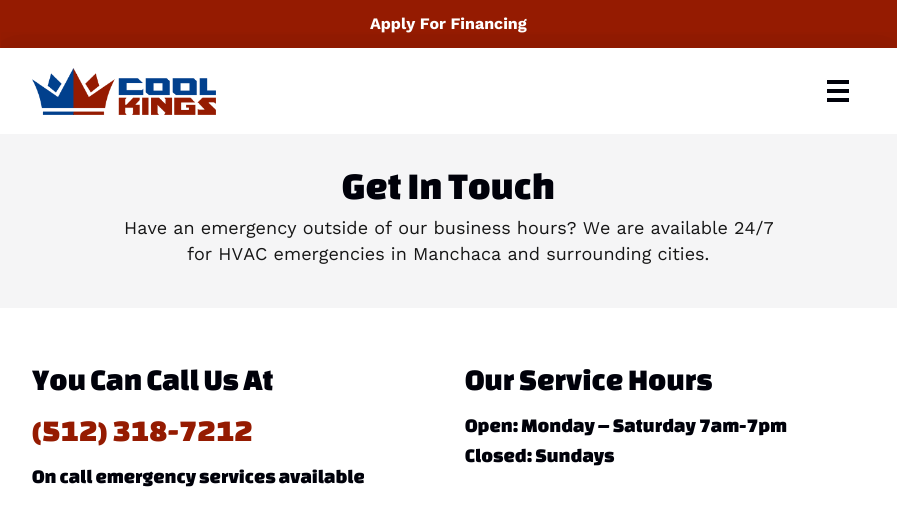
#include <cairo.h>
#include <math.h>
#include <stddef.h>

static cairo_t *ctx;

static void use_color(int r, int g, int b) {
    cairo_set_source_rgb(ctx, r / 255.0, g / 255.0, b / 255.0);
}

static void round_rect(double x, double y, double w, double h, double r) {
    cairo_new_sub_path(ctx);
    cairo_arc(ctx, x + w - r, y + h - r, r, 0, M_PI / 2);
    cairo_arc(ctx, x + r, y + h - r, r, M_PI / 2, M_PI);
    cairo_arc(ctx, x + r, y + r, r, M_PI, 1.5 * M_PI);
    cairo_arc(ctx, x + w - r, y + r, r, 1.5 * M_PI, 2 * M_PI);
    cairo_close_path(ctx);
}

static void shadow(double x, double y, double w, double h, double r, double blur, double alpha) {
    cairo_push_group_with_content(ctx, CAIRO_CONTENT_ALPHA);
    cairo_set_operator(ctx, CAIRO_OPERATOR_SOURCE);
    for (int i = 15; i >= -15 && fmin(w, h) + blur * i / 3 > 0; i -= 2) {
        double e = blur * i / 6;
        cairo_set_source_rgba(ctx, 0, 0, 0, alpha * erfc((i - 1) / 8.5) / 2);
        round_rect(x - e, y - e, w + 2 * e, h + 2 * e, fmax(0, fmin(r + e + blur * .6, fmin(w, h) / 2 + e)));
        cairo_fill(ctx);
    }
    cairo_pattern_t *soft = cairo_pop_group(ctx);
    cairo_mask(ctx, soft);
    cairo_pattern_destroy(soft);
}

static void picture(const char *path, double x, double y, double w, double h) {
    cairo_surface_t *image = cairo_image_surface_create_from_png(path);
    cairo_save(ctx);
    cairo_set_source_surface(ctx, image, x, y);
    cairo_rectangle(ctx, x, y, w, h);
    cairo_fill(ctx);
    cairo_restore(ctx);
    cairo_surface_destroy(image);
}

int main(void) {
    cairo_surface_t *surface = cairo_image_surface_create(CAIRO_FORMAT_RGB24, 897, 519);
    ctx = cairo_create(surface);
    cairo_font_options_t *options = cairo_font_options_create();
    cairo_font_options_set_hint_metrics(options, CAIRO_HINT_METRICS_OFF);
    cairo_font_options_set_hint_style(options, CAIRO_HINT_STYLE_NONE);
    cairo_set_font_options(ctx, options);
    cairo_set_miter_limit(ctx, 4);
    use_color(255, 255, 255);
    cairo_paint(ctx);
    use_color(149, 27, 1);
    cairo_rectangle(ctx, 0, 0, 897, 48);
    cairo_fill(ctx);
    cairo_save(ctx);
    cairo_rectangle(ctx, 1, 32, 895, 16);
    cairo_clip(ctx);
    use_color(0, 0, 0);
    shadow(10, 58, 877, 66, 0, 20, 0.2);
    cairo_restore(ctx);
    picture("img1.png", 32, 68, 184, 47);
    use_color(0, 1, 10);
    cairo_rectangle(ctx, 827, 80, 22, 4);
    cairo_fill(ctx);
    cairo_rectangle(ctx, 827, 89, 22, 4);
    cairo_fill(ctx);
    cairo_rectangle(ctx, 827, 98, 22, 4);
    cairo_fill(ctx);
    cairo_select_font_face(ctx, "Work Sans", CAIRO_FONT_SLANT_NORMAL, CAIRO_FONT_WEIGHT_BOLD);
    cairo_set_font_size(ctx, 16);
    use_color(255, 255, 255);
    cairo_move_to(ctx, 370, 29);
    cairo_show_text(ctx, "Apply For Financing");
    use_color(245, 245, 246);
    cairo_rectangle(ctx, 0, 134, 897, 174);
    cairo_fill(ctx);
    cairo_select_font_face(ctx, "Changa One", CAIRO_FONT_SLANT_NORMAL, CAIRO_FONT_WEIGHT_NORMAL);
    cairo_set_font_size(ctx, 39);
    use_color(0, 1, 10);
    cairo_move_to(ctx, 342, 199);
    cairo_show_text(ctx, "Get In Touch");
    cairo_select_font_face(ctx, "Work Sans", CAIRO_FONT_SLANT_NORMAL, CAIRO_FONT_WEIGHT_NORMAL);
    cairo_set_font_size(ctx, 18);
    use_color(22, 22, 22);
    cairo_move_to(ctx, 124, 234);
    cairo_show_text(ctx, "Have an emergency outside of our business hours? We are available 24/7");
    cairo_move_to(ctx, 187, 260);
    cairo_show_text(ctx, "for HVAC emergencies in Manchaca and surrounding cities.");
    cairo_select_font_face(ctx, "Changa One", CAIRO_FONT_SLANT_NORMAL, CAIRO_FONT_WEIGHT_NORMAL);
    cairo_set_font_size(ctx, 31);
    use_color(0, 1, 10);
    cairo_move_to(ctx, 32, 390);
    cairo_show_text(ctx, "You Can Call Us At");
    use_color(149, 27, 1);
    cairo_move_to(ctx, 32, 441);
    cairo_show_text(ctx, "(512) 318-7212");
    cairo_set_font_size(ctx, 20);
    use_color(0, 1, 10);
    cairo_move_to(ctx, 32, 483);
    cairo_show_text(ctx, "On call emergency services available");
    cairo_set_font_size(ctx, 31);
    cairo_move_to(ctx, 465, 390);
    cairo_show_text(ctx, "Our Service Hours");
    cairo_set_font_size(ctx, 20);
    cairo_move_to(ctx, 465, 432);
    cairo_show_text(ctx, "Open: Monday – Saturday 7am-7pm");
    cairo_move_to(ctx, 465, 462);
    cairo_show_text(ctx, "Closed: Sundays");
    cairo_surface_write_to_png(surface, "result.png");
    cairo_font_options_destroy(options);
    cairo_destroy(ctx);
    cairo_surface_destroy(surface);
    return 0;
}
